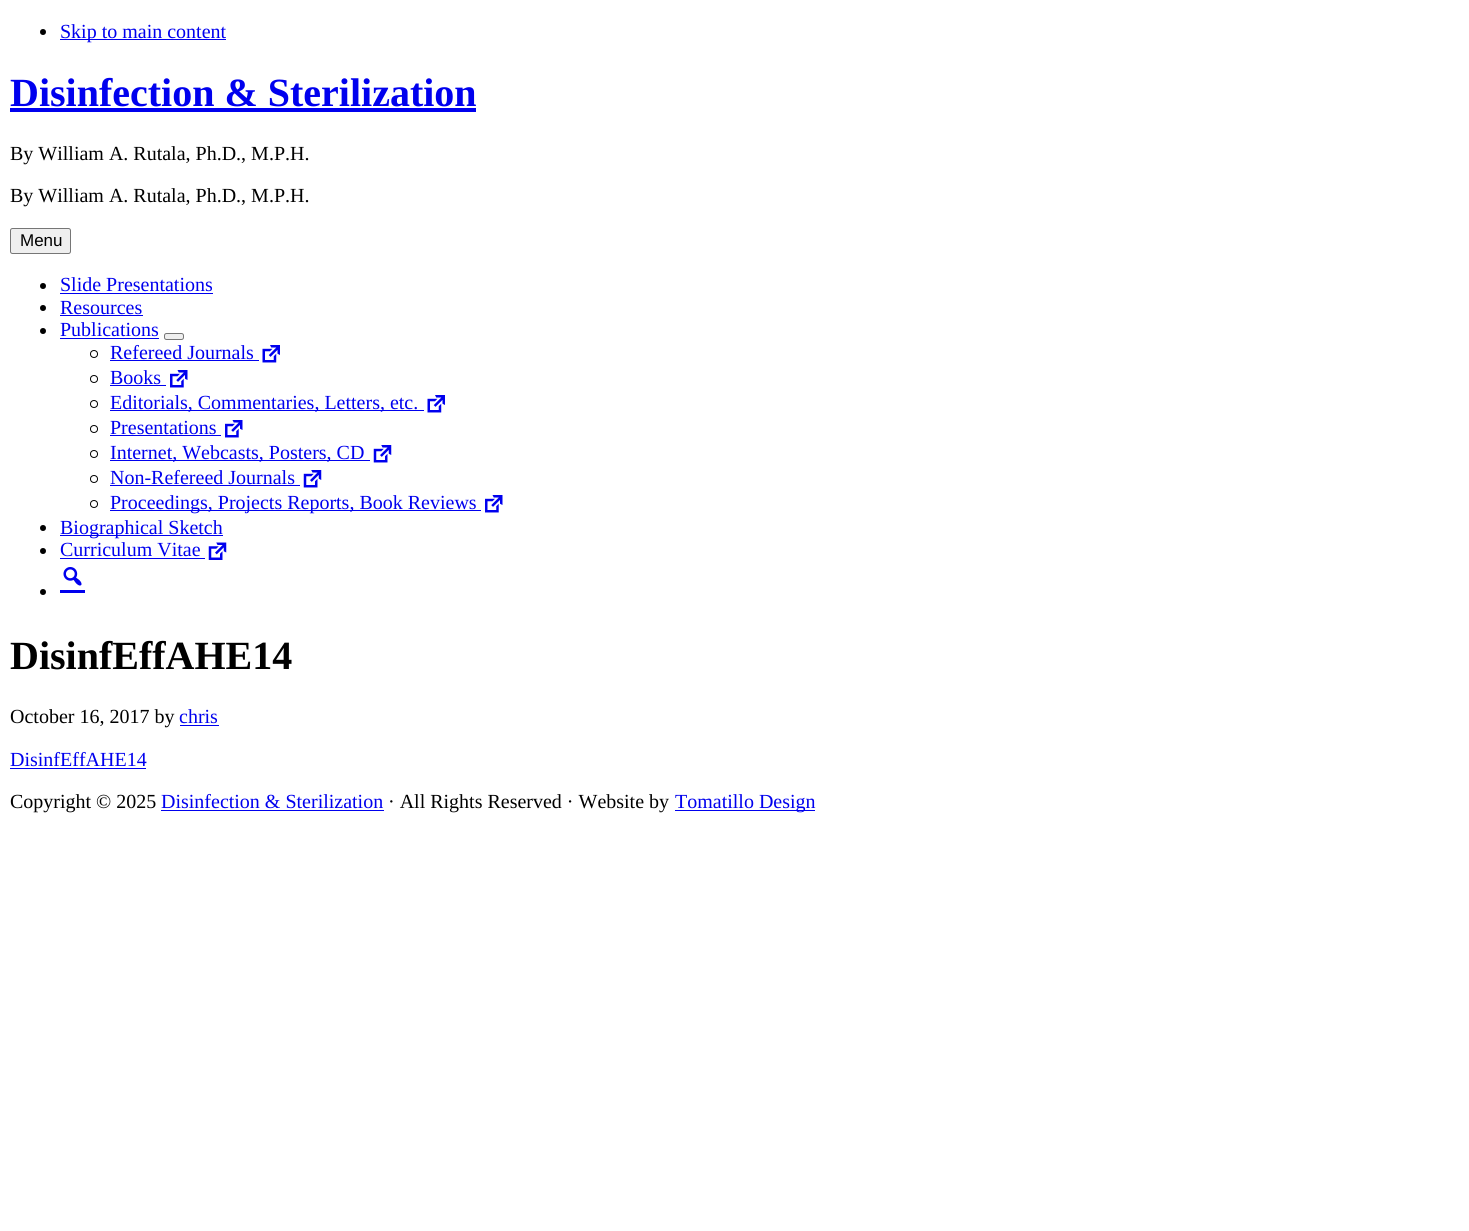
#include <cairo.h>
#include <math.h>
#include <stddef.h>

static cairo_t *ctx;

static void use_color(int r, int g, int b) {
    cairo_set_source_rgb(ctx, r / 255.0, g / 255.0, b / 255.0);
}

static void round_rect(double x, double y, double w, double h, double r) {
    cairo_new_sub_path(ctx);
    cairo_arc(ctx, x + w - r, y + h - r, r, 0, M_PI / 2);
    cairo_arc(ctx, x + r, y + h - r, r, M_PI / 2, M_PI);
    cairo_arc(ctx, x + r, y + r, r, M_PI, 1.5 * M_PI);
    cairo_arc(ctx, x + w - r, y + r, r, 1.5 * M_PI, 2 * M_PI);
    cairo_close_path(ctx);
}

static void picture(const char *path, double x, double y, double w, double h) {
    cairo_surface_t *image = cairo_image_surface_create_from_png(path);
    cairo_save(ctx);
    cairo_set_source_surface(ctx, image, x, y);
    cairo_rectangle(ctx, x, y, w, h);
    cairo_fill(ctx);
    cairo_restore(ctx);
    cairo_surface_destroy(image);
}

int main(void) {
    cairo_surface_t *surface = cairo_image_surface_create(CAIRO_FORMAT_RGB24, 1469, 1231);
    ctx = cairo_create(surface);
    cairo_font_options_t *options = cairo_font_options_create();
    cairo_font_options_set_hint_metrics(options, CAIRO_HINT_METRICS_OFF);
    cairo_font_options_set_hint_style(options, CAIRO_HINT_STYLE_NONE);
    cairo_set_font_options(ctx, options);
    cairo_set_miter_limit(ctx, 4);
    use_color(255, 255, 255);
    cairo_paint(ctx);
    use_color(0, 0, 0);
    cairo_arc(ctx, 43, 32, 3, 0, 2 * M_PI);
    cairo_fill(ctx);
    use_color(0, 0, 238);
    cairo_rectangle(ctx, 60, 39, 166, 1);
    cairo_fill(ctx);
    cairo_select_font_face(ctx, "Liberation Serif", CAIRO_FONT_SLANT_NORMAL, CAIRO_FONT_WEIGHT_NORMAL);
    cairo_set_font_size(ctx, 20);
    cairo_move_to(ctx, 60, 38);
    cairo_show_text(ctx, "Skip to main content");
    cairo_select_font_face(ctx, "Liberation Serif", CAIRO_FONT_SLANT_NORMAL, CAIRO_FONT_WEIGHT_BOLD);
    cairo_set_font_size(ctx, 40);
    cairo_move_to(ctx, 10, 106);
    cairo_show_text(ctx, "Disinfection & Sterilization");
    cairo_rectangle(ctx, 10, 108, 466, 4);
    cairo_fill(ctx);
    cairo_select_font_face(ctx, "Liberation Serif", CAIRO_FONT_SLANT_NORMAL, CAIRO_FONT_WEIGHT_NORMAL);
    cairo_set_font_size(ctx, 20);
    use_color(0, 0, 0);
    cairo_move_to(ctx, 10, 160);
    cairo_show_text(ctx, "By William A. Rutala, Ph.D., M.P.H.");
    cairo_move_to(ctx, 10, 202);
    cairo_show_text(ctx, "By William A. Rutala, Ph.D., M.P.H.");
    use_color(239, 239, 239);
    round_rect(10.5, 228.5, 60, 25, 2);
    cairo_fill_preserve(ctx);
    use_color(118, 118, 118);
    cairo_set_line_width(ctx, 1);
    cairo_stroke(ctx);
    cairo_select_font_face(ctx, "Liberation Sans", CAIRO_FONT_SLANT_NORMAL, CAIRO_FONT_WEIGHT_NORMAL);
    cairo_set_font_size(ctx, 17);
    use_color(0, 0, 0);
    cairo_move_to(ctx, 20, 246);
    cairo_show_text(ctx, "Menu");
    cairo_new_path(ctx);
    cairo_arc(ctx, 43, 286, 3, 0, 2 * M_PI);
    cairo_fill(ctx);
    cairo_select_font_face(ctx, "Liberation Serif", CAIRO_FONT_SLANT_NORMAL, CAIRO_FONT_WEIGHT_NORMAL);
    cairo_set_font_size(ctx, 20);
    use_color(0, 0, 238);
    cairo_move_to(ctx, 60, 291);
    cairo_show_text(ctx, "Slide Presentations");
    cairo_rectangle(ctx, 60, 293, 153, 1);
    cairo_fill(ctx);
    use_color(0, 0, 0);
    cairo_arc(ctx, 43, 308, 3, 0, 2 * M_PI);
    cairo_fill(ctx);
    use_color(0, 0, 238);
    cairo_move_to(ctx, 60, 314);
    cairo_show_text(ctx, "Resources");
    cairo_rectangle(ctx, 60, 315, 83, 1);
    cairo_fill(ctx);
    use_color(0, 0, 0);
    cairo_arc(ctx, 43, 331, 3, 0, 2 * M_PI);
    cairo_fill(ctx);
    use_color(0, 0, 238);
    cairo_move_to(ctx, 60, 336);
    cairo_show_text(ctx, "Publications");
    cairo_rectangle(ctx, 60, 338, 99, 1);
    cairo_fill(ctx);
    use_color(239, 239, 239);
    round_rect(164.5, 333.5, 19, 6, 2);
    cairo_fill_preserve(ctx);
    use_color(118, 118, 118);
    cairo_stroke(ctx);
    cairo_arc(ctx, 94, 354, 3.5, 0, 2 * M_PI);
    use_color(0, 0, 0);
    cairo_stroke(ctx);
    use_color(0, 0, 238);
    cairo_move_to(ctx, 110, 359);
    cairo_show_text(ctx, "Refereed Journals");
    cairo_rectangle(ctx, 110, 360, 149, 1);
    cairo_fill(ctx);
    picture("img1.png", 262, 345, 18, 18);
    cairo_arc(ctx, 94, 379, 3.5, 0, 2 * M_PI);
    use_color(0, 0, 0);
    cairo_stroke(ctx);
    use_color(0, 0, 238);
    cairo_move_to(ctx, 110, 384);
    cairo_show_text(ctx, "Books");
    cairo_rectangle(ctx, 110, 385, 56, 1);
    cairo_fill(ctx);
    picture("img2.png", 170, 370, 18, 18);
    cairo_arc(ctx, 94, 404, 3.5, 0, 2 * M_PI);
    use_color(0, 0, 0);
    cairo_stroke(ctx);
    use_color(0, 0, 238);
    cairo_rectangle(ctx, 110, 410, 314, 1);
    cairo_fill(ctx);
    cairo_move_to(ctx, 110, 409);
    cairo_show_text(ctx, "Editorials, Commentaries, Letters, etc.");
    picture("img1.png", 427, 395, 18, 18);
    cairo_arc(ctx, 94, 429, 3.5, 0, 2 * M_PI);
    use_color(0, 0, 0);
    cairo_stroke(ctx);
    use_color(0, 0, 238);
    cairo_move_to(ctx, 110, 434);
    cairo_show_text(ctx, "Presentations");
    cairo_rectangle(ctx, 110, 435, 111, 1);
    cairo_fill(ctx);
    picture("img2.png", 225, 420, 18, 18);
    cairo_arc(ctx, 94, 454, 3.5, 0, 2 * M_PI);
    use_color(0, 0, 0);
    cairo_stroke(ctx);
    use_color(0, 0, 238);
    cairo_rectangle(ctx, 110, 460, 260, 1);
    cairo_fill(ctx);
    cairo_move_to(ctx, 110, 459);
    cairo_show_text(ctx, "Internet, Webcasts, Posters, CD");
    picture("img3.png", 373, 445, 19, 18);
    cairo_arc(ctx, 94, 479, 3.5, 0, 2 * M_PI);
    use_color(0, 0, 0);
    cairo_stroke(ctx);
    use_color(0, 0, 238);
    cairo_move_to(ctx, 110, 484);
    cairo_show_text(ctx, "Non-Refereed Journals");
    cairo_rectangle(ctx, 110, 485, 190, 1);
    cairo_fill(ctx);
    picture("img3.png", 303, 470, 19, 18);
    cairo_arc(ctx, 94, 504, 3.5, 0, 2 * M_PI);
    use_color(0, 0, 0);
    cairo_stroke(ctx);
    use_color(0, 0, 238);
    cairo_rectangle(ctx, 110, 510, 371, 1);
    cairo_fill(ctx);
    cairo_move_to(ctx, 110, 509);
    cairo_show_text(ctx, "Proceedings, Projects Reports, Book Reviews");
    picture("img2.png", 485, 495, 18, 18);
    use_color(0, 0, 0);
    cairo_arc(ctx, 43, 528, 3, 0, 2 * M_PI);
    cairo_fill(ctx);
    use_color(0, 0, 238);
    cairo_rectangle(ctx, 60, 535, 163, 1);
    cairo_fill(ctx);
    cairo_move_to(ctx, 60, 534);
    cairo_show_text(ctx, "Biographical Sketch");
    use_color(0, 0, 0);
    cairo_new_path(ctx);
    cairo_arc(ctx, 43, 551, 3, 0, 2 * M_PI);
    cairo_fill(ctx);
    use_color(0, 0, 238);
    cairo_move_to(ctx, 60, 556);
    cairo_show_text(ctx, "Curriculum Vitae");
    cairo_rectangle(ctx, 60, 558, 145, 1);
    cairo_fill(ctx);
    picture("img4.png", 208, 542, 19, 18);
    use_color(0, 0, 0);
    cairo_arc(ctx, 43, 592, 3, 0, 2 * M_PI);
    cairo_fill(ctx);
    picture("img5.png", 63, 567, 19, 19);
    use_color(0, 0, 238);
    cairo_rectangle(ctx, 60, 590, 25, 3);
    cairo_fill(ctx);
    cairo_select_font_face(ctx, "Liberation Serif", CAIRO_FONT_SLANT_NORMAL, CAIRO_FONT_WEIGHT_BOLD);
    cairo_set_font_size(ctx, 40);
    use_color(0, 0, 0);
    cairo_move_to(ctx, 10, 669);
    cairo_show_text(ctx, "DisinfEffAHE14");
    cairo_select_font_face(ctx, "Liberation Serif", CAIRO_FONT_SLANT_NORMAL, CAIRO_FONT_WEIGHT_NORMAL);
    cairo_set_font_size(ctx, 20);
    cairo_move_to(ctx, 10, 723);
    cairo_show_text(ctx, "October 16, 2017 by");
    use_color(0, 0, 238);
    cairo_move_to(ctx, 179, 723);
    cairo_show_text(ctx, "chris");
    cairo_rectangle(ctx, 180, 725, 39, 1);
    cairo_fill(ctx);
    cairo_move_to(ctx, 10, 766);
    cairo_show_text(ctx, "DisinfEffAHE14");
    cairo_rectangle(ctx, 10, 768, 136, 1);
    cairo_fill(ctx);
    use_color(0, 0, 0);
    cairo_move_to(ctx, 10, 808);
    cairo_show_text(ctx, "Copyright © 2025");
    use_color(0, 0, 238);
    cairo_move_to(ctx, 161, 808);
    cairo_show_text(ctx, "Disinfection & Sterilization");
    cairo_rectangle(ctx, 161, 810, 223, 1);
    cairo_fill(ctx);
    use_color(0, 0, 0);
    cairo_move_to(ctx, 388, 808);
    cairo_show_text(ctx, "· All Rights Reserved · Website by");
    use_color(0, 0, 238);
    cairo_rectangle(ctx, 675, 810, 140, 1);
    cairo_fill(ctx);
    cairo_move_to(ctx, 675, 808);
    cairo_show_text(ctx, "Tomatillo Design");
    cairo_surface_write_to_png(surface, "result.png");
    cairo_font_options_destroy(options);
    cairo_destroy(ctx);
    cairo_surface_destroy(surface);
    return 0;
}
